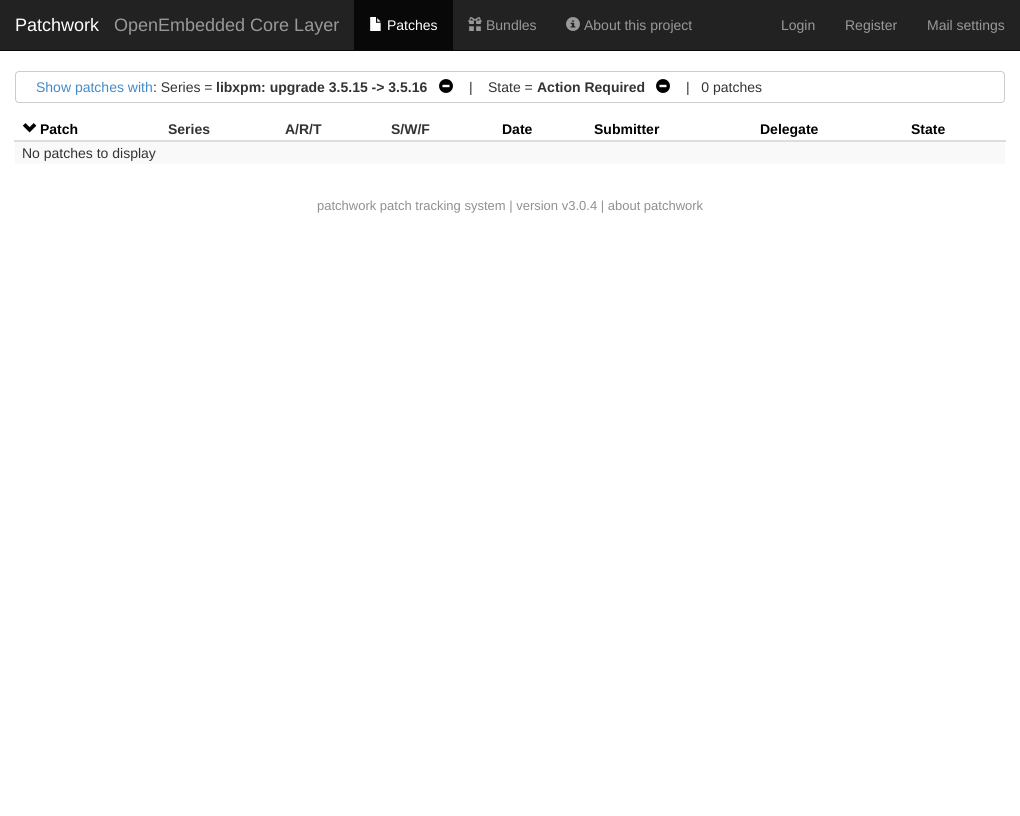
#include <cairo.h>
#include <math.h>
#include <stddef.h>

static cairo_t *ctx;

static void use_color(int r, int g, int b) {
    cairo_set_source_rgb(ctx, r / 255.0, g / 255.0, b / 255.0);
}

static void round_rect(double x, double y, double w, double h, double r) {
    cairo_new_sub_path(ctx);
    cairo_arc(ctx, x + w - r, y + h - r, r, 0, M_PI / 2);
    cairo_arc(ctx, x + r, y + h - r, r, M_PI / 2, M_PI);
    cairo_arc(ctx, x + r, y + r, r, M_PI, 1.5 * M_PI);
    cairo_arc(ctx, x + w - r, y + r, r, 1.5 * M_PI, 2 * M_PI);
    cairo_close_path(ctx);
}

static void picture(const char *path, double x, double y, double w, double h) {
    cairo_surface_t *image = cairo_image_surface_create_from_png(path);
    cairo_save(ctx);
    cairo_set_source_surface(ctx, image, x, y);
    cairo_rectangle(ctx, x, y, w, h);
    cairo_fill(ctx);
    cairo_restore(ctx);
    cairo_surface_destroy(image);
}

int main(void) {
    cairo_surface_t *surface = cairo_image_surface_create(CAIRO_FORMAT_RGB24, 1020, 816);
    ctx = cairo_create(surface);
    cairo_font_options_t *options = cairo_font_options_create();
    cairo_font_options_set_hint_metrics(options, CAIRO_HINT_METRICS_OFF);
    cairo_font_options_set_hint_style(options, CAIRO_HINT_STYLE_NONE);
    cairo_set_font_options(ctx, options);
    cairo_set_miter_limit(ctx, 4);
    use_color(255, 255, 255);
    cairo_paint(ctx);
    use_color(34, 34, 34);
    cairo_rectangle(ctx, 0, 0, 1020, 50);
    cairo_fill(ctx);
    use_color(8, 8, 8);
    cairo_rectangle(ctx, 0, 50, 1020, 1);
    cairo_fill(ctx);
    cairo_select_font_face(ctx, "Liberation Sans", CAIRO_FONT_SLANT_NORMAL, CAIRO_FONT_WEIGHT_NORMAL);
    cairo_set_font_size(ctx, 18);
    use_color(255, 255, 255);
    cairo_move_to(ctx, 15, 31);
    cairo_show_text(ctx, "Patchwork");
    use_color(153, 153, 153);
    cairo_move_to(ctx, 114, 31);
    cairo_show_text(ctx, "OpenEmbedded Core Layer");
    use_color(8, 8, 8);
    cairo_rectangle(ctx, 354, 0, 99, 50);
    cairo_fill(ctx);
    picture("img1.png", 370, 17, 11, 14);
    cairo_set_font_size(ctx, 14);
    use_color(255, 255, 255);
    cairo_move_to(ctx, 387, 30);
    cairo_show_text(ctx, "Patches");
    picture("img2.png", 468, 17, 14, 14);
    use_color(153, 153, 153);
    cairo_move_to(ctx, 486, 30);
    cairo_show_text(ctx, "Bundles");
    picture("img3.png", 566, 17, 14, 14);
    cairo_move_to(ctx, 584, 30);
    cairo_show_text(ctx, "About this project");
    cairo_move_to(ctx, 781, 30);
    cairo_show_text(ctx, "Login");
    cairo_move_to(ctx, 845, 30);
    cairo_show_text(ctx, "Register");
    cairo_move_to(ctx, 927, 30);
    cairo_show_text(ctx, "Mail settings");
    round_rect(15.5, 71.5, 989, 31, 3.5);
    use_color(204, 204, 204);
    cairo_set_line_width(ctx, 1);
    cairo_stroke(ctx);
    use_color(66, 139, 202);
    cairo_move_to(ctx, 36, 92);
    cairo_show_text(ctx, "Show patches with");
    use_color(51, 51, 51);
    cairo_move_to(ctx, 153, 92);
    cairo_show_text(ctx, ": Series =");
    cairo_select_font_face(ctx, "Liberation Sans", CAIRO_FONT_SLANT_NORMAL, CAIRO_FONT_WEIGHT_BOLD);
    cairo_move_to(ctx, 216, 92);
    cairo_show_text(ctx, "libxpm: upgrade 3.5.15 -> 3.5.16");
    picture("img4.png", 439, 79, 14, 14);
    cairo_select_font_face(ctx, "Liberation Sans", CAIRO_FONT_SLANT_NORMAL, CAIRO_FONT_WEIGHT_NORMAL);
    cairo_move_to(ctx, 469, 92);
    cairo_show_text(ctx, "|");
    cairo_move_to(ctx, 488, 92);
    cairo_show_text(ctx, "State =");
    cairo_select_font_face(ctx, "Liberation Sans", CAIRO_FONT_SLANT_NORMAL, CAIRO_FONT_WEIGHT_BOLD);
    cairo_move_to(ctx, 537, 92);
    cairo_show_text(ctx, "Action Required");
    picture("img4.png", 656, 79, 14, 14);
    cairo_select_font_face(ctx, "Liberation Sans", CAIRO_FONT_SLANT_NORMAL, CAIRO_FONT_WEIGHT_NORMAL);
    cairo_move_to(ctx, 686, 92);
    cairo_show_text(ctx, "|   0 patches");
    picture("img5.png", 22, 123, 15, 10);
    cairo_select_font_face(ctx, "Liberation Sans", CAIRO_FONT_SLANT_NORMAL, CAIRO_FONT_WEIGHT_BOLD);
    use_color(0, 0, 0);
    cairo_move_to(ctx, 40, 134);
    cairo_show_text(ctx, "Patch");
    use_color(51, 51, 51);
    cairo_move_to(ctx, 168, 134);
    cairo_show_text(ctx, "Series");
    cairo_move_to(ctx, 285, 134);
    cairo_show_text(ctx, "A/R/T");
    cairo_move_to(ctx, 391, 134);
    cairo_show_text(ctx, "S/W/F");
    use_color(0, 0, 0);
    cairo_move_to(ctx, 502, 134);
    cairo_show_text(ctx, "Date");
    cairo_move_to(ctx, 594, 134);
    cairo_show_text(ctx, "Submitter");
    cairo_move_to(ctx, 760, 134);
    cairo_show_text(ctx, "Delegate");
    use_color(221, 221, 221);
    cairo_rectangle(ctx, 14, 140, 992, 2);
    cairo_fill(ctx);
    use_color(0, 0, 0);
    cairo_move_to(ctx, 911, 134);
    cairo_show_text(ctx, "State");
    use_color(249, 249, 249);
    cairo_rectangle(ctx, 15, 142, 990, 22);
    cairo_fill(ctx);
    cairo_select_font_face(ctx, "Liberation Sans", CAIRO_FONT_SLANT_NORMAL, CAIRO_FONT_WEIGHT_NORMAL);
    use_color(51, 51, 51);
    cairo_move_to(ctx, 22, 158);
    cairo_show_text(ctx, "No patches to display");
    cairo_set_font_size(ctx, 13);
    use_color(144, 144, 144);
    cairo_move_to(ctx, 317, 210);
    cairo_show_text(ctx, "patchwork patch tracking system | version v3.0.4 | about patchwork");
    cairo_surface_write_to_png(surface, "result.png");
    cairo_font_options_destroy(options);
    cairo_destroy(ctx);
    cairo_surface_destroy(surface);
    return 0;
}
